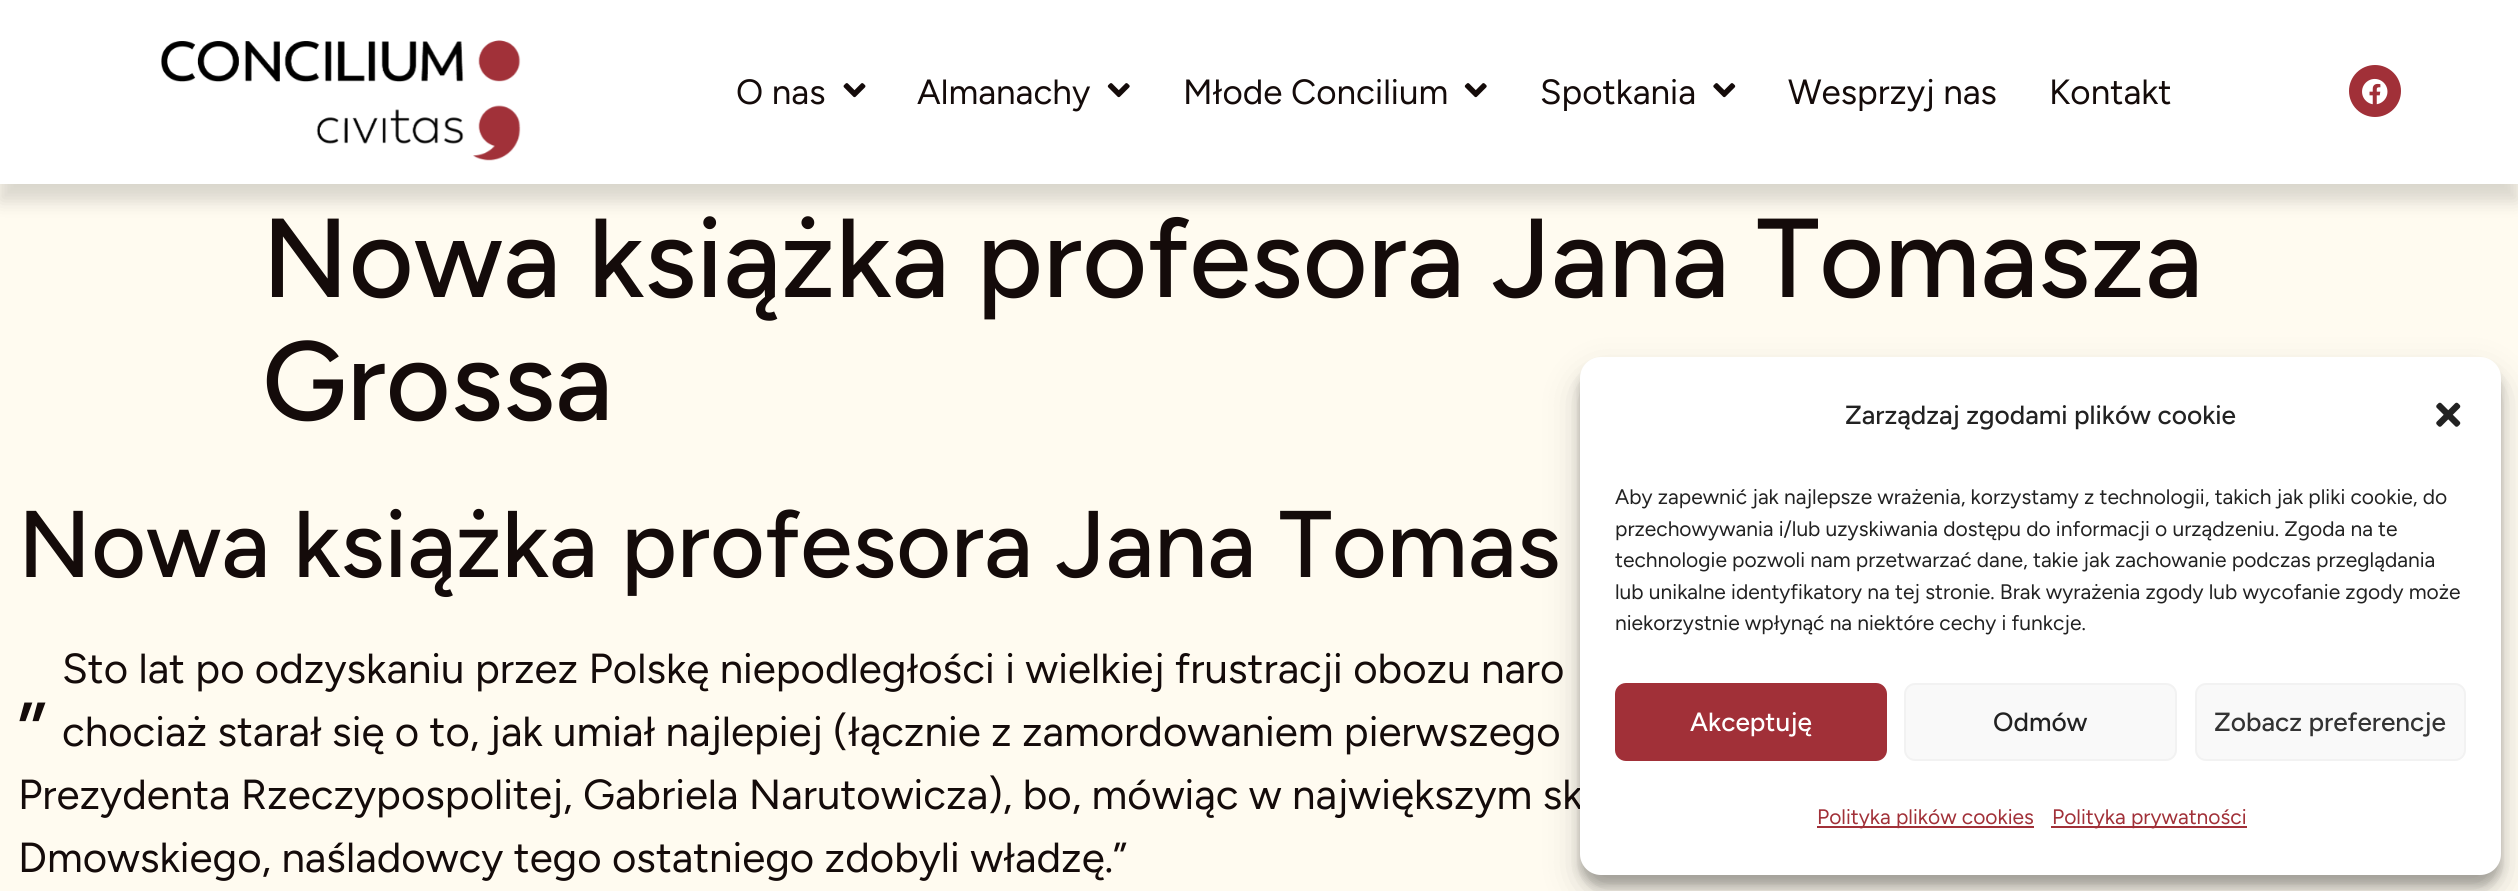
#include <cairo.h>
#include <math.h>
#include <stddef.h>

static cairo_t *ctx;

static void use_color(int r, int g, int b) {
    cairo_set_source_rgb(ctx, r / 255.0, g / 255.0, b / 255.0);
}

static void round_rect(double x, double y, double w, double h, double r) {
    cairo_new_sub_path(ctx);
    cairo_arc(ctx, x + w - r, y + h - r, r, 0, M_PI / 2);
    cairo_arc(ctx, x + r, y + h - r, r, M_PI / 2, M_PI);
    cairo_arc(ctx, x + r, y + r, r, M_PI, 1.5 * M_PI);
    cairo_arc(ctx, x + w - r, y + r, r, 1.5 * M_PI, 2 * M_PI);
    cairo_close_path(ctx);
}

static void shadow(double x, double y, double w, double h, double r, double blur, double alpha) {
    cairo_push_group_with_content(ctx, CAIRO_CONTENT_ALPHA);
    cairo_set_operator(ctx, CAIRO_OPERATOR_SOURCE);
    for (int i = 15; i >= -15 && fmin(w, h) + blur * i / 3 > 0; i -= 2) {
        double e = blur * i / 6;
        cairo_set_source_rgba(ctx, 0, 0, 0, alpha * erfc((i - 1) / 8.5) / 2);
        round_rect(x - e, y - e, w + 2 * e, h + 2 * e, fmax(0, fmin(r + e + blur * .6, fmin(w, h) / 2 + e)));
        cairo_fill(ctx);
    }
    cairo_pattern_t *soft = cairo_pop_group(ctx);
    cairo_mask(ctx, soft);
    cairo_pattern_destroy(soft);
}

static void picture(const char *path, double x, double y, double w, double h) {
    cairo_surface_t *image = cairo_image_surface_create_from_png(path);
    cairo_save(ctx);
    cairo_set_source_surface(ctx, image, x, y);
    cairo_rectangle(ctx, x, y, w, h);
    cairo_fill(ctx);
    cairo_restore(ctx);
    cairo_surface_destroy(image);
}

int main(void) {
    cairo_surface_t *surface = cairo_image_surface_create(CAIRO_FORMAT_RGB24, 2518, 891);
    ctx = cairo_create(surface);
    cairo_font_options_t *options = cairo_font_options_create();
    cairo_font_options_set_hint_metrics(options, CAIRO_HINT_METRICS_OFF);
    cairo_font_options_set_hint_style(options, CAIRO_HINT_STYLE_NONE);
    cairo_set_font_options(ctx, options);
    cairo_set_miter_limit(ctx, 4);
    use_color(255, 251, 240);
    cairo_paint(ctx);
    use_color(0, 0, 0);
    shadow(0, 18, 2518, 183, 0, 9, 0.15);
    use_color(255, 255, 255);
    cairo_rectangle(ctx, 0, 0, 2518, 184);
    cairo_fill(ctx);
    picture("img1.png", 161, 40, 360, 121);
    cairo_select_font_face(ctx, "Figtree", CAIRO_FONT_SLANT_NORMAL, CAIRO_FONT_WEIGHT_NORMAL);
    cairo_set_font_size(ctx, 35);
    use_color(20, 11, 10);
    cairo_move_to(ctx, 736, 104);
    cairo_show_text(ctx, "O nas");
    picture("img2.png", 843, 83, 23, 15);
    cairo_move_to(ctx, 917, 104);
    cairo_show_text(ctx, "Almanachy");
    picture("img3.png", 1107, 83, 23, 15);
    cairo_move_to(ctx, 1183, 104);
    cairo_show_text(ctx, "Młode Concilium");
    picture("img3.png", 1464, 83, 23, 15);
    cairo_move_to(ctx, 1540, 104);
    cairo_show_text(ctx, "Spotkania");
    picture("img4.png", 1713, 83, 23, 15);
    cairo_move_to(ctx, 1788, 104);
    cairo_show_text(ctx, "Wesprzyj nas");
    cairo_move_to(ctx, 2049, 104);
    cairo_show_text(ctx, "Kontakt");
    use_color(161, 48, 56);
    cairo_new_path(ctx);
    cairo_arc(ctx, 2375, 91, 26, 0, 2 * M_PI);
    cairo_fill(ctx);
    picture("img5.png", 2362, 78, 26, 27);
    cairo_select_font_face(ctx, "Figtree Medium", CAIRO_FONT_SLANT_NORMAL, CAIRO_FONT_WEIGHT_NORMAL);
    cairo_set_font_size(ctx, 112);
    use_color(20, 11, 10);
    cairo_move_to(ctx, 262, 297);
    cairo_show_text(ctx, "Nowa książka profesora Jana Tomasza");
    cairo_move_to(ctx, 262, 420);
    cairo_show_text(ctx, "Grossa");
    cairo_set_font_size(ctx, 94.5);
    cairo_move_to(ctx, 18, 577);
    cairo_show_text(ctx, "Nowa książka profesora Jana Tomas");
    cairo_select_font_face(ctx, "Figtree", CAIRO_FONT_SLANT_NORMAL, CAIRO_FONT_WEIGHT_NORMAL);
    cairo_set_font_size(ctx, 42);
    cairo_move_to(ctx, 62, 683);
    cairo_show_text(ctx, "Sto lat po odzyskaniu przez Polskę niepodległości i wielkiej frustracji obozu naro");
    cairo_set_font_size(ctx, 88);
    cairo_move_to(ctx, 18, 711);
    cairo_show_text(ctx, "„");
    cairo_set_font_size(ctx, 42);
    cairo_move_to(ctx, 62, 746);
    cairo_show_text(ctx, "chociaż starał się o to, jak umiał najlepiej (łącznie z zamordowaniem pierwszego");
    cairo_move_to(ctx, 18, 809);
    cairo_show_text(ctx, "Prezydenta Rzeczypospolitej, Gabriela Narutowicza), bo, mówiąc w największym sk");
    cairo_move_to(ctx, 18, 872);
    cairo_show_text(ctx, "Dmowskiego, naśladowcy tego ostatniego zdobyli władzę.”");
    use_color(0, 0, 0);
    shadow(1580, 368, 921, 518, 21, 5, 0.23);
    shadow(1580, 375, 921, 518, 21, 17.5, 0.19);
    use_color(255, 255, 255);
    round_rect(1580, 357, 921, 518, 21);
    cairo_fill(ctx);
    cairo_select_font_face(ctx, "Figtree Medium", CAIRO_FONT_SLANT_NORMAL, CAIRO_FONT_WEIGHT_NORMAL);
    cairo_set_font_size(ctx, 26.25);
    use_color(34, 34, 34);
    cairo_move_to(ctx, 1845, 424);
    cairo_show_text(ctx, "Zarządzaj zgodami plików cookie");
    picture("img6.png", 2436, 402, 25, 25);
    cairo_select_font_face(ctx, "Figtree", CAIRO_FONT_SLANT_NORMAL, CAIRO_FONT_WEIGHT_NORMAL);
    cairo_set_font_size(ctx, 21);
    cairo_move_to(ctx, 1615, 504);
    cairo_show_text(ctx, "Aby zapewnić jak najlepsze wrażenia, korzystamy z technologii, takich jak pliki cookie, do");
    cairo_move_to(ctx, 1615, 536);
    cairo_show_text(ctx, "przechowywania i/lub uzyskiwania dostępu do informacji o urządzeniu. Zgoda na te");
    cairo_move_to(ctx, 1615, 567);
    cairo_show_text(ctx, "technologie pozwoli nam przetwarzać dane, takie jak zachowanie podczas przeglądania");
    cairo_move_to(ctx, 1615, 599);
    cairo_show_text(ctx, "lub unikalne identyfikatory na tej stronie. Brak wyrażenia zgody lub wycofanie zgody może");
    cairo_move_to(ctx, 1615, 630);
    cairo_show_text(ctx, "niekorzystnie wpłynąć na niektóre cechy i funkcje.");
    use_color(161, 48, 56);
    round_rect(1616, 684, 270, 76, 10);
    cairo_fill_preserve(ctx);
    cairo_stroke(ctx);
    cairo_select_font_face(ctx, "Figtree Medium", CAIRO_FONT_SLANT_NORMAL, CAIRO_FONT_WEIGHT_NORMAL);
    cairo_set_font_size(ctx, 26.25);
    use_color(255, 255, 255);
    cairo_move_to(ctx, 1690, 731);
    cairo_show_text(ctx, "Akceptuję");
    use_color(249, 249, 249);
    round_rect(1905, 684, 271, 76, 10);
    cairo_fill_preserve(ctx);
    use_color(242, 242, 242);
    cairo_stroke(ctx);
    use_color(34, 34, 34);
    cairo_move_to(ctx, 1993, 731);
    cairo_show_text(ctx, "Odmów");
    use_color(249, 249, 249);
    round_rect(2196, 684, 269, 76, 10);
    cairo_fill_preserve(ctx);
    use_color(242, 242, 242);
    cairo_stroke(ctx);
    use_color(51, 51, 51);
    cairo_move_to(ctx, 2214, 731);
    cairo_show_text(ctx, "Zobacz preferencje");
    use_color(161, 48, 56);
    cairo_rectangle(ctx, 1817, 826, 217, 2);
    cairo_fill(ctx);
    cairo_select_font_face(ctx, "Figtree", CAIRO_FONT_SLANT_NORMAL, CAIRO_FONT_WEIGHT_NORMAL);
    cairo_set_font_size(ctx, 21);
    cairo_move_to(ctx, 1817, 824);
    cairo_show_text(ctx, "Polityka plików cookies");
    cairo_rectangle(ctx, 2051, 826, 196, 2);
    cairo_fill(ctx);
    cairo_move_to(ctx, 2052, 824);
    cairo_show_text(ctx, "Polityka prywatności");
    cairo_surface_write_to_png(surface, "result.png");
    cairo_font_options_destroy(options);
    cairo_destroy(ctx);
    cairo_surface_destroy(surface);
    return 0;
}
